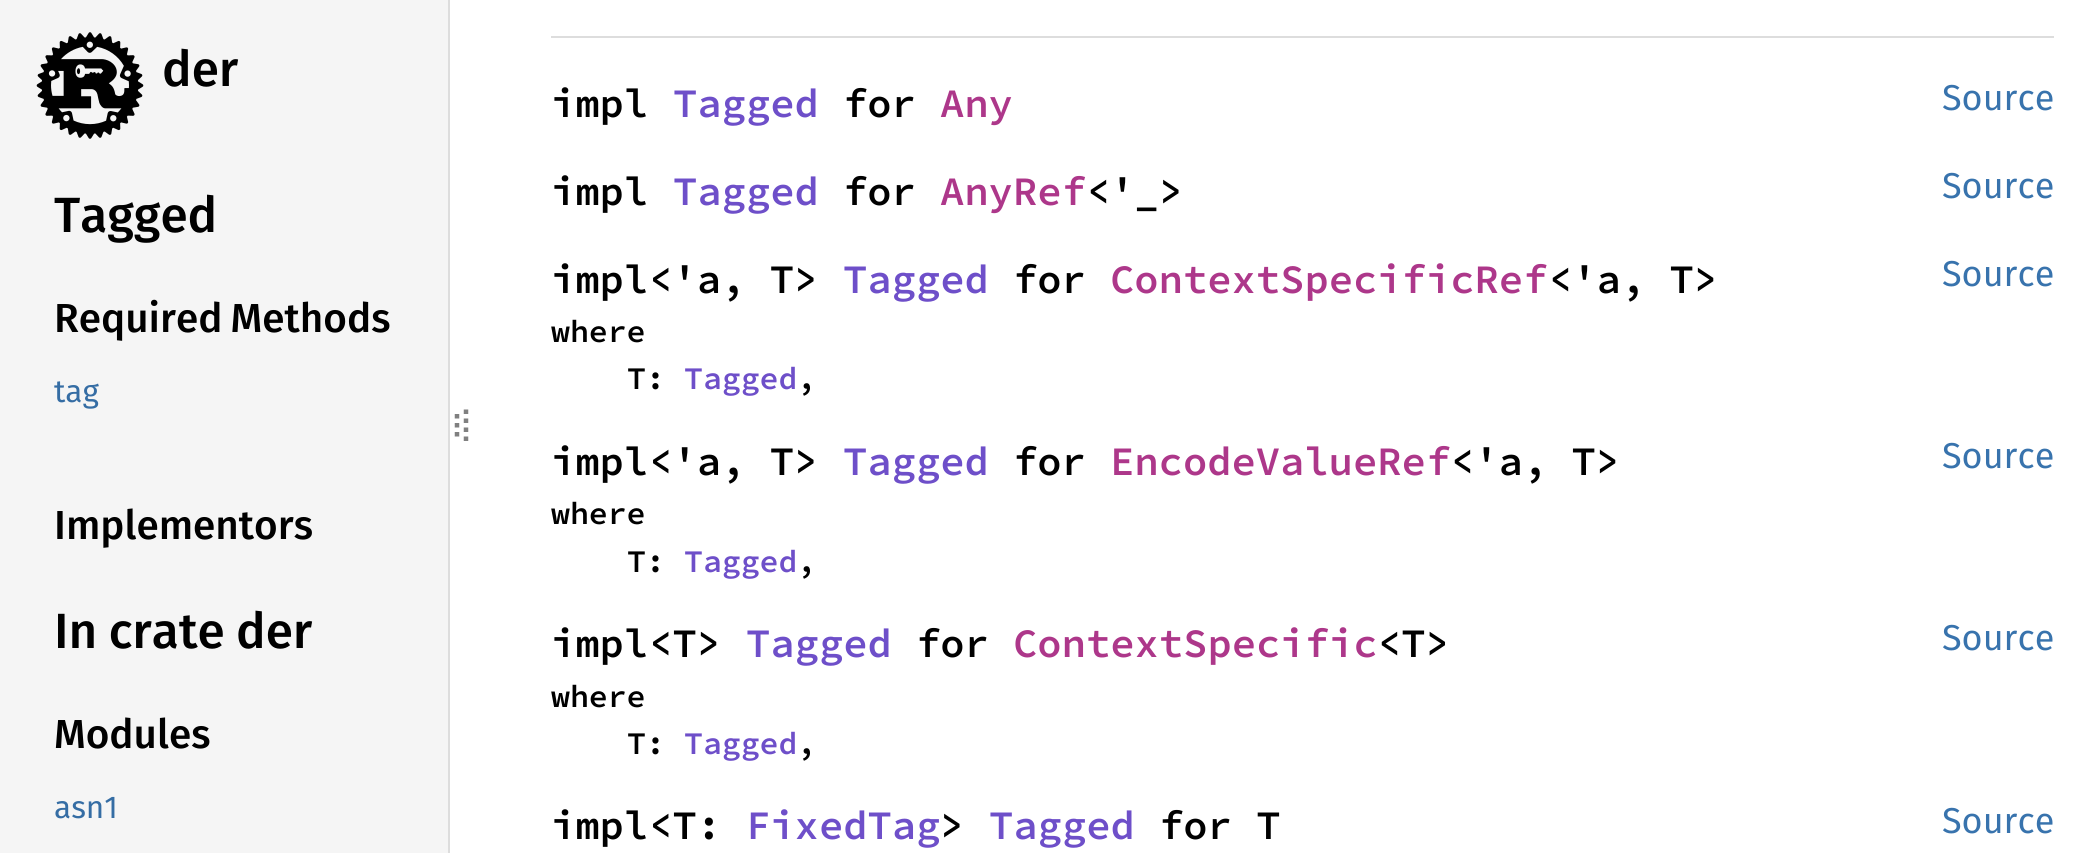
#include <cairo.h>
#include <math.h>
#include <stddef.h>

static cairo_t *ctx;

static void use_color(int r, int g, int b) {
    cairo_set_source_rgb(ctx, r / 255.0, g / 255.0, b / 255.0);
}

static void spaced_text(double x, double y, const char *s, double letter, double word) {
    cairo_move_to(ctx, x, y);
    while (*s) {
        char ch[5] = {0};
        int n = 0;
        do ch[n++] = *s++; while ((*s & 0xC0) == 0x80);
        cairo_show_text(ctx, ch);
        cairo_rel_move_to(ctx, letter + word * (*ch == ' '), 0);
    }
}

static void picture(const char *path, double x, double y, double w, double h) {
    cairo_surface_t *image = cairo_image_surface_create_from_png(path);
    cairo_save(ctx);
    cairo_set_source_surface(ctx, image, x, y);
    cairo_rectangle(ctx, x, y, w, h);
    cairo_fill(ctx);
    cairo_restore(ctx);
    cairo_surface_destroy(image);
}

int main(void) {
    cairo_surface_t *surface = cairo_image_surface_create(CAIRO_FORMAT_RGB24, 2088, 853);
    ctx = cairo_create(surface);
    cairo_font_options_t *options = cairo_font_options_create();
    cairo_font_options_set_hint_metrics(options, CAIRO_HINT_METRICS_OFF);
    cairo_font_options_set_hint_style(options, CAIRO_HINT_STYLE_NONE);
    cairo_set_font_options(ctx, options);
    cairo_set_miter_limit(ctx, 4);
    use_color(255, 255, 255);
    cairo_paint(ctx);
    use_color(245, 245, 245);
    cairo_rectangle(ctx, 0, 0, 448, 853);
    cairo_fill(ctx);
    use_color(221, 221, 221);
    cairo_rectangle(ctx, 448, 0, 2, 853);
    cairo_fill(ctx);
    picture("img1.png", 36, 32, 108, 107);
    cairo_select_font_face(ctx, "Fira Sans Medium", CAIRO_FONT_SLANT_NORMAL, CAIRO_FONT_WEIGHT_NORMAL);
    cairo_set_font_size(ctx, 49.5);
    use_color(0, 0, 0);
    cairo_move_to(ctx, 162, 86);
    cairo_show_text(ctx, "der");
    cairo_move_to(ctx, 54, 232);
    cairo_show_text(ctx, "Tagged");
    cairo_set_font_size(ctx, 40.5);
    spaced_text(54, 332, "Required Methods", 0, -2);
    cairo_select_font_face(ctx, "Fira Sans", CAIRO_FONT_SLANT_NORMAL, CAIRO_FONT_WEIGHT_NORMAL);
    cairo_set_font_size(ctx, 31.5);
    use_color(53, 109, 164);
    cairo_move_to(ctx, 54, 402);
    cairo_show_text(ctx, "tag");
    cairo_select_font_face(ctx, "Fira Sans Medium", CAIRO_FONT_SLANT_NORMAL, CAIRO_FONT_WEIGHT_NORMAL);
    cairo_set_font_size(ctx, 40.5);
    use_color(0, 0, 0);
    cairo_move_to(ctx, 54, 539);
    cairo_show_text(ctx, "Implementors");
    cairo_set_font_size(ctx, 49.5);
    spaced_text(54, 648, "In crate der", 0, -1);
    cairo_set_font_size(ctx, 40.5);
    cairo_move_to(ctx, 54, 748);
    cairo_show_text(ctx, "Modules");
    cairo_select_font_face(ctx, "Fira Sans", CAIRO_FONT_SLANT_NORMAL, CAIRO_FONT_WEIGHT_NORMAL);
    cairo_set_font_size(ctx, 31.5);
    use_color(53, 109, 164);
    cairo_move_to(ctx, 54, 818);
    cairo_show_text(ctx, "asn1");
    cairo_new_path(ctx);
    cairo_move_to(ctx, 457, 414);
    cairo_line_to(ctx, 457, 418.5);
    cairo_move_to(ctx, 457, 423);
    cairo_line_to(ctx, 457, 427.5);
    cairo_move_to(ctx, 457, 432);
    cairo_line_to(ctx, 457, 436.5);
    use_color(128, 128, 128);
    cairo_set_line_width(ctx, 4.5);
    cairo_stroke(ctx);
    cairo_new_path(ctx);
    cairo_move_to(ctx, 466, 409.5);
    cairo_line_to(ctx, 466, 445.5);
    cairo_set_dash(ctx, (double[]){4.5, 4.5}, 2, 0);
    cairo_stroke(ctx);
    use_color(221, 221, 221);
    cairo_rectangle(ctx, 551, 36, 1503, 2);
    cairo_fill(ctx);
    cairo_select_font_face(ctx, "Source Code Pro SemiBold", CAIRO_FONT_SLANT_NORMAL, CAIRO_FONT_WEIGHT_NORMAL);
    cairo_set_font_size(ctx, 40.5);
    use_color(0, 0, 0);
    cairo_move_to(ctx, 551, 117);
    cairo_show_text(ctx, "impl");
    use_color(110, 79, 201);
    cairo_move_to(ctx, 673, 117);
    cairo_show_text(ctx, "Tagged");
    use_color(0, 0, 0);
    cairo_move_to(ctx, 843, 117);
    cairo_show_text(ctx, "for");
    use_color(173, 55, 138);
    cairo_move_to(ctx, 940, 117);
    cairo_show_text(ctx, "Any");
    cairo_select_font_face(ctx, "Fira Sans", CAIRO_FONT_SLANT_NORMAL, CAIRO_FONT_WEIGHT_NORMAL);
    cairo_set_font_size(ctx, 36);
    use_color(56, 115, 173);
    cairo_move_to(ctx, 1942, 110);
    cairo_show_text(ctx, "Source");
    cairo_select_font_face(ctx, "Source Code Pro SemiBold", CAIRO_FONT_SLANT_NORMAL, CAIRO_FONT_WEIGHT_NORMAL);
    cairo_set_font_size(ctx, 40.5);
    use_color(0, 0, 0);
    cairo_move_to(ctx, 551, 205);
    cairo_show_text(ctx, "impl");
    use_color(110, 79, 201);
    cairo_move_to(ctx, 673, 205);
    cairo_show_text(ctx, "Tagged");
    use_color(0, 0, 0);
    cairo_move_to(ctx, 843, 205);
    cairo_show_text(ctx, "for");
    use_color(173, 55, 138);
    cairo_move_to(ctx, 940, 205);
    cairo_show_text(ctx, "AnyRef");
    use_color(0, 0, 0);
    cairo_move_to(ctx, 1086, 205);
    cairo_show_text(ctx, "<'_>");
    cairo_select_font_face(ctx, "Fira Sans", CAIRO_FONT_SLANT_NORMAL, CAIRO_FONT_WEIGHT_NORMAL);
    cairo_set_font_size(ctx, 36);
    use_color(56, 115, 173);
    cairo_move_to(ctx, 1942, 198);
    cairo_show_text(ctx, "Source");
    cairo_select_font_face(ctx, "Source Code Pro SemiBold", CAIRO_FONT_SLANT_NORMAL, CAIRO_FONT_WEIGHT_NORMAL);
    cairo_set_font_size(ctx, 40.5);
    use_color(0, 0, 0);
    cairo_move_to(ctx, 551, 293);
    cairo_show_text(ctx, "impl<'a, T>");
    use_color(110, 79, 201);
    cairo_move_to(ctx, 843, 293);
    cairo_show_text(ctx, "Tagged");
    use_color(0, 0, 0);
    cairo_move_to(ctx, 1013, 293);
    cairo_show_text(ctx, "for");
    use_color(173, 55, 138);
    cairo_move_to(ctx, 1110, 293);
    cairo_show_text(ctx, "ContextSpecificRef");
    use_color(0, 0, 0);
    cairo_move_to(ctx, 1548, 293);
    cairo_show_text(ctx, "<'a, T>");
    cairo_set_font_size(ctx, 31.5);
    cairo_move_to(ctx, 551, 342);
    cairo_show_text(ctx, "where");
    cairo_move_to(ctx, 627, 389);
    cairo_show_text(ctx, "T:");
    use_color(110, 79, 201);
    cairo_move_to(ctx, 684, 389);
    cairo_show_text(ctx, "Tagged");
    use_color(0, 0, 0);
    cairo_move_to(ctx, 797, 389);
    cairo_show_text(ctx, ",");
    cairo_select_font_face(ctx, "Fira Sans", CAIRO_FONT_SLANT_NORMAL, CAIRO_FONT_WEIGHT_NORMAL);
    cairo_set_font_size(ctx, 36);
    use_color(56, 115, 173);
    cairo_move_to(ctx, 1942, 286);
    cairo_show_text(ctx, "Source");
    cairo_select_font_face(ctx, "Source Code Pro SemiBold", CAIRO_FONT_SLANT_NORMAL, CAIRO_FONT_WEIGHT_NORMAL);
    cairo_set_font_size(ctx, 40.5);
    use_color(0, 0, 0);
    cairo_move_to(ctx, 551, 475);
    cairo_show_text(ctx, "impl<'a, T>");
    use_color(110, 79, 201);
    cairo_move_to(ctx, 843, 475);
    cairo_show_text(ctx, "Tagged");
    use_color(0, 0, 0);
    cairo_move_to(ctx, 1013, 475);
    cairo_show_text(ctx, "for");
    use_color(173, 55, 138);
    cairo_move_to(ctx, 1110, 475);
    cairo_show_text(ctx, "EncodeValueRef");
    use_color(0, 0, 0);
    cairo_move_to(ctx, 1450, 475);
    cairo_show_text(ctx, "<'a, T>");
    cairo_set_font_size(ctx, 31.5);
    cairo_move_to(ctx, 551, 524);
    cairo_show_text(ctx, "where");
    cairo_move_to(ctx, 627, 572);
    cairo_show_text(ctx, "T:");
    use_color(110, 79, 201);
    cairo_move_to(ctx, 684, 572);
    cairo_show_text(ctx, "Tagged");
    use_color(0, 0, 0);
    cairo_move_to(ctx, 797, 572);
    cairo_show_text(ctx, ",");
    cairo_select_font_face(ctx, "Fira Sans", CAIRO_FONT_SLANT_NORMAL, CAIRO_FONT_WEIGHT_NORMAL);
    cairo_set_font_size(ctx, 36);
    use_color(56, 115, 173);
    cairo_move_to(ctx, 1942, 468);
    cairo_show_text(ctx, "Source");
    cairo_select_font_face(ctx, "Source Code Pro SemiBold", CAIRO_FONT_SLANT_NORMAL, CAIRO_FONT_WEIGHT_NORMAL);
    cairo_set_font_size(ctx, 40.5);
    use_color(0, 0, 0);
    cairo_move_to(ctx, 551, 657);
    cairo_show_text(ctx, "impl<T>");
    use_color(110, 79, 201);
    cairo_move_to(ctx, 746, 657);
    cairo_show_text(ctx, "Tagged");
    use_color(0, 0, 0);
    cairo_move_to(ctx, 916, 657);
    cairo_show_text(ctx, "for");
    use_color(173, 55, 138);
    cairo_move_to(ctx, 1013, 657);
    cairo_show_text(ctx, "ContextSpecific");
    use_color(0, 0, 0);
    cairo_move_to(ctx, 1377, 657);
    cairo_show_text(ctx, "<T>");
    cairo_set_font_size(ctx, 31.5);
    cairo_move_to(ctx, 551, 707);
    cairo_show_text(ctx, "where");
    cairo_move_to(ctx, 627, 754);
    cairo_show_text(ctx, "T:");
    use_color(110, 79, 201);
    cairo_move_to(ctx, 684, 754);
    cairo_show_text(ctx, "Tagged");
    use_color(0, 0, 0);
    cairo_move_to(ctx, 797, 754);
    cairo_show_text(ctx, ",");
    cairo_select_font_face(ctx, "Fira Sans", CAIRO_FONT_SLANT_NORMAL, CAIRO_FONT_WEIGHT_NORMAL);
    cairo_set_font_size(ctx, 36);
    use_color(56, 115, 173);
    cairo_move_to(ctx, 1942, 650);
    cairo_show_text(ctx, "Source");
    cairo_select_font_face(ctx, "Source Code Pro SemiBold", CAIRO_FONT_SLANT_NORMAL, CAIRO_FONT_WEIGHT_NORMAL);
    cairo_set_font_size(ctx, 40.5);
    use_color(0, 0, 0);
    cairo_move_to(ctx, 551, 839);
    cairo_show_text(ctx, "impl<T:");
    use_color(110, 79, 201);
    cairo_move_to(ctx, 746, 839);
    cairo_show_text(ctx, "FixedTag");
    use_color(0, 0, 0);
    cairo_move_to(ctx, 940, 839);
    cairo_show_text(ctx, ">");
    use_color(110, 79, 201);
    cairo_move_to(ctx, 989, 839);
    cairo_show_text(ctx, "Tagged");
    use_color(0, 0, 0);
    cairo_move_to(ctx, 1159, 839);
    cairo_show_text(ctx, "for T");
    cairo_select_font_face(ctx, "Fira Sans", CAIRO_FONT_SLANT_NORMAL, CAIRO_FONT_WEIGHT_NORMAL);
    cairo_set_font_size(ctx, 36);
    use_color(56, 115, 173);
    cairo_move_to(ctx, 1942, 833);
    cairo_show_text(ctx, "Source");
    cairo_surface_write_to_png(surface, "result.png");
    cairo_font_options_destroy(options);
    cairo_destroy(ctx);
    cairo_surface_destroy(surface);
    return 0;
}
